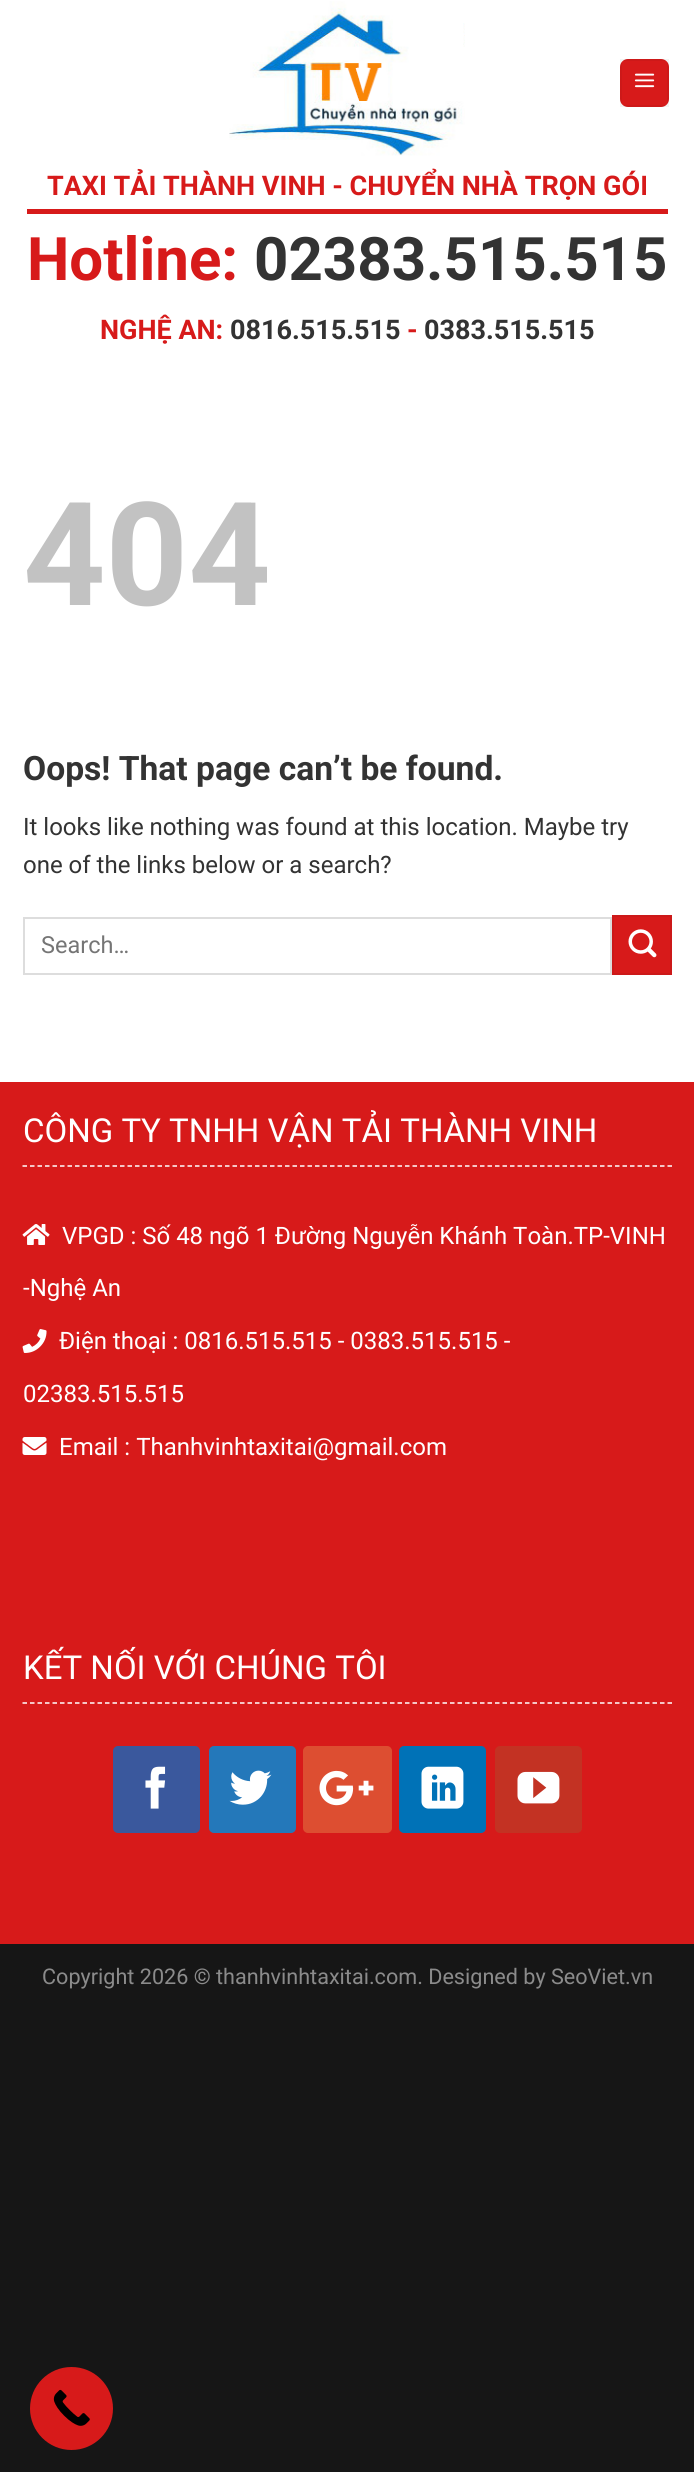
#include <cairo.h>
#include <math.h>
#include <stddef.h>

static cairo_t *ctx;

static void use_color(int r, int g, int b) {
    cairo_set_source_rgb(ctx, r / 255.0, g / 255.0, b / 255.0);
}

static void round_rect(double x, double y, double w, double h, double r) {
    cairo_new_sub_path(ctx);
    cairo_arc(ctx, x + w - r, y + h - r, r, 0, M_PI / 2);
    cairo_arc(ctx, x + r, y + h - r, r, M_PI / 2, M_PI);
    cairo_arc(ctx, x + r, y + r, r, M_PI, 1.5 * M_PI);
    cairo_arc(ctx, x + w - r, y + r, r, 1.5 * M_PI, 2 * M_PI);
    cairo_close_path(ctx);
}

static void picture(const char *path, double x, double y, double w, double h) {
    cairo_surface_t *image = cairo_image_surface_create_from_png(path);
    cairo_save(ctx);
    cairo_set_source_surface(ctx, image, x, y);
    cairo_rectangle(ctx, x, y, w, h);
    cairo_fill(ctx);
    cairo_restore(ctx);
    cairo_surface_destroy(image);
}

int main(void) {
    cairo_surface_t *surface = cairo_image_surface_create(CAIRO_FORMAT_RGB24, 694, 2472);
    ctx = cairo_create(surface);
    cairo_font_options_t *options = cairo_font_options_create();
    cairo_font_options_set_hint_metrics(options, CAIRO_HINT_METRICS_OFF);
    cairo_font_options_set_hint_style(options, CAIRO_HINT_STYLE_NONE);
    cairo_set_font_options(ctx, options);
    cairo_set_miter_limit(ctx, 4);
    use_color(22, 22, 22);
    cairo_paint(ctx);
    use_color(255, 255, 255);
    cairo_rectangle(ctx, 0, 0, 694, 1082);
    cairo_fill(ctx);
    picture("img1.png", 229, 1, 236, 155);
    use_color(215, 26, 26);
    round_rect(620, 59, 49, 48, 8);
    cairo_fill(ctx);
    cairo_rectangle(ctx, 621, 60, 47, 46);
    cairo_set_source_rgba(ctx, 0, 0, 0, 0.05);
    cairo_stroke(ctx);
    picture("img2.png", 634, 73, 21, 15);
    use_color(215, 26, 26);
    cairo_rectangle(ctx, 27, 209, 641, 5);
    cairo_fill(ctx);
    cairo_select_font_face(ctx, "Roboto", CAIRO_FONT_SLANT_NORMAL, CAIRO_FONT_WEIGHT_BOLD);
    cairo_set_font_size(ctx, 27);
    cairo_move_to(ctx, 47, 195);
    cairo_show_text(ctx, "TAXI TẢI THÀNH VINH - CHUYỂN NHÀ TRỌN GÓI");
    cairo_set_font_size(ctx, 60);
    cairo_move_to(ctx, 27, 280);
    cairo_show_text(ctx, "Hotline:");
    use_color(51, 51, 51);
    cairo_move_to(ctx, 254, 280);
    cairo_show_text(ctx, "02383.515.515");
    cairo_set_font_size(ctx, 27);
    use_color(215, 26, 26);
    cairo_move_to(ctx, 100, 339);
    cairo_show_text(ctx, "NGHỆ AN:");
    use_color(51, 51, 51);
    cairo_move_to(ctx, 230, 339);
    cairo_show_text(ctx, "0816.515.515");
    use_color(215, 26, 26);
    cairo_move_to(ctx, 407, 339);
    cairo_show_text(ctx, "-");
    use_color(51, 51, 51);
    cairo_move_to(ctx, 424, 339);
    cairo_show_text(ctx, "0383.515.515");
    cairo_set_font_size(ctx, 144);
    use_color(194, 194, 194);
    cairo_move_to(ctx, 23, 605);
    cairo_show_text(ctx, "404");
    cairo_set_font_size(ctx, 33.6);
    use_color(51, 51, 51);
    cairo_move_to(ctx, 23, 780);
    cairo_show_text(ctx, "Oops! That page can’t be found.");
    cairo_select_font_face(ctx, "Roboto", CAIRO_FONT_SLANT_NORMAL, CAIRO_FONT_WEIGHT_NORMAL);
    cairo_set_font_size(ctx, 24);
    cairo_move_to(ctx, 23, 835);
    cairo_show_text(ctx, "It looks like nothing was found at this location. Maybe try");
    cairo_move_to(ctx, 23, 873);
    cairo_show_text(ctx, "one of the links below or a search?");
    cairo_rectangle(ctx, 24, 918, 587, 56);
    use_color(221, 221, 221);
    cairo_stroke(ctx);
    cairo_set_font_size(ctx, 23.5);
    use_color(117, 117, 117);
    cairo_move_to(ctx, 41, 953);
    cairo_show_text(ctx, "Search…");
    use_color(215, 26, 26);
    cairo_rectangle(ctx, 613, 916, 58, 58);
    cairo_fill_preserve(ctx);
    use_color(204, 25, 25);
    cairo_stroke(ctx);
    picture("img3.png", 628, 929, 29, 29);
    use_color(215, 26, 26);
    cairo_rectangle(ctx, 0, 1082, 694, 862);
    cairo_fill(ctx);
    cairo_new_path(ctx);
    cairo_move_to(ctx, 22.5, 1166);
    cairo_line_to(ctx, 672, 1166);
    use_color(255, 255, 255);
    cairo_set_line_width(ctx, 1.5);
    cairo_set_dash(ctx, (double[]){4.5, 3}, 2, 0);
    cairo_stroke(ctx);
    cairo_set_font_size(ctx, 33);
    cairo_move_to(ctx, 23, 1142);
    cairo_show_text(ctx, "CÔNG TY TNHH VẬN TẢI THÀNH VINH");
    picture("img4.png", 22, 1224, 28, 21);
    cairo_set_font_size(ctx, 24);
    cairo_move_to(ctx, 62, 1244);
    cairo_show_text(ctx, "VPGD : Số 48 ngõ 1 Đường Nguyễn Khánh Toàn.TP-VINH");
    cairo_move_to(ctx, 23, 1296);
    cairo_show_text(ctx, "-Nghệ An");
    picture("img5.png", 22, 1329, 25, 24);
    cairo_move_to(ctx, 59, 1349);
    cairo_show_text(ctx, "Điện thoại : 0816.515.515 - 0383.515.515 -");
    cairo_move_to(ctx, 23, 1402);
    cairo_show_text(ctx, "02383.515.515");
    picture("img6.png", 22, 1437, 25, 18);
    cairo_move_to(ctx, 59, 1455);
    cairo_show_text(ctx, "Email : Thanhvinhtaxitai@gmail.com");
    cairo_new_path(ctx);
    cairo_move_to(ctx, 22.5, 1703);
    cairo_line_to(ctx, 672, 1703);
    cairo_stroke(ctx);
    cairo_set_font_size(ctx, 33);
    cairo_move_to(ctx, 23, 1679);
    cairo_show_text(ctx, "KẾT NỐI VỚI CHÚNG TÔI");
    use_color(58, 88, 157);
    round_rect(114, 1747, 85, 85, 4);
    cairo_fill_preserve(ctx);
    cairo_set_line_width(ctx, 2);
    cairo_set_dash(ctx, NULL, 0, 0);
    cairo_stroke(ctx);
    picture("img7.png", 145, 1766, 21, 43);
    use_color(36, 120, 186);
    round_rect(210, 1747, 85, 85, 4);
    cairo_fill_preserve(ctx);
    cairo_stroke(ctx);
    picture("img8.png", 229, 1770, 43, 35);
    use_color(221, 78, 49);
    round_rect(304, 1747, 87, 85, 4);
    cairo_fill_preserve(ctx);
    cairo_stroke(ctx);
    picture("img9.png", 319, 1770, 55, 36);
    use_color(0, 114, 183);
    round_rect(400, 1747, 85, 85, 4);
    cairo_fill_preserve(ctx);
    cairo_stroke(ctx);
    picture("img10.png", 421, 1766, 43, 43);
    use_color(195, 50, 35);
    round_rect(496, 1747, 85, 85, 4);
    cairo_fill_preserve(ctx);
    cairo_stroke(ctx);
    picture("img11.png", 517, 1771, 43, 33);
    cairo_set_font_size(ctx, 21.6);
    use_color(139, 139, 139);
    cairo_move_to(ctx, 42, 1984);
    cairo_show_text(ctx, "Copyright 2026 © thanhvinhtaxitai.com. Designed by");
    cairo_move_to(ctx, 551, 1984);
    cairo_show_text(ctx, "SeoViet.vn");
    use_color(215, 26, 26);
    cairo_new_path(ctx);
    cairo_arc(ctx, 71.5, 2408.5, 41.5, 0, 2 * M_PI);
    cairo_fill(ctx);
    picture("img12.png", 53, 2389, 37, 37);
    cairo_surface_write_to_png(surface, "result.png");
    cairo_font_options_destroy(options);
    cairo_destroy(ctx);
    cairo_surface_destroy(surface);
    return 0;
}
